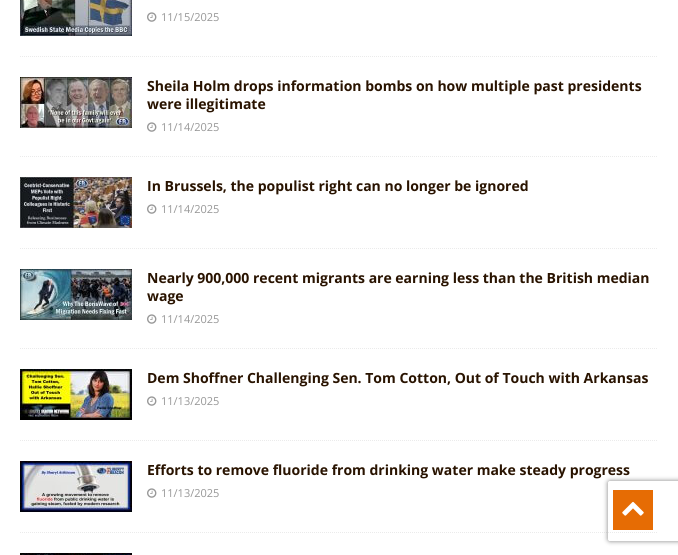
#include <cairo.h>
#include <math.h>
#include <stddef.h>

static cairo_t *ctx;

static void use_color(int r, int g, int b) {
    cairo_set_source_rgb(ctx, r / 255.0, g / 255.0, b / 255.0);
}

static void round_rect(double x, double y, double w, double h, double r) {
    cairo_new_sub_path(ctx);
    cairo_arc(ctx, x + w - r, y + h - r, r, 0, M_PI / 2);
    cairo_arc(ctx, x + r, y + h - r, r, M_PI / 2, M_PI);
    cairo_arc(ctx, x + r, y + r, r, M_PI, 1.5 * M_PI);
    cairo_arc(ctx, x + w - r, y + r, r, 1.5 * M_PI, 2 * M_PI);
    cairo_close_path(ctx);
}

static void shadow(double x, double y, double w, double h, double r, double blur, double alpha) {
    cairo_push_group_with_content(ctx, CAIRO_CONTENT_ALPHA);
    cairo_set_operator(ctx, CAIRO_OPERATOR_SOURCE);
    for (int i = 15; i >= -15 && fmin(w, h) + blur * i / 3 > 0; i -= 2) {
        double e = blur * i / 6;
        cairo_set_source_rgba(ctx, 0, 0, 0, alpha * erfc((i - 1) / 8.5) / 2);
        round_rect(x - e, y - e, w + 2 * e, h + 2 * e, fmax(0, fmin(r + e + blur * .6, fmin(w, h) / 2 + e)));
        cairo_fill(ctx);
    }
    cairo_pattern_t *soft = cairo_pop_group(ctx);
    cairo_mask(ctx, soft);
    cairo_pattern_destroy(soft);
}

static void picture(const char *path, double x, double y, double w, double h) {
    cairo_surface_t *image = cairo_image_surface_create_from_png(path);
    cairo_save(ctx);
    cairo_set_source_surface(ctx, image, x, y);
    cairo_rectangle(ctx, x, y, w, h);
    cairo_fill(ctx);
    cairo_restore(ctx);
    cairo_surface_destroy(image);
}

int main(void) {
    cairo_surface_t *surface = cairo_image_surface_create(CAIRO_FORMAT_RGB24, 678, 555);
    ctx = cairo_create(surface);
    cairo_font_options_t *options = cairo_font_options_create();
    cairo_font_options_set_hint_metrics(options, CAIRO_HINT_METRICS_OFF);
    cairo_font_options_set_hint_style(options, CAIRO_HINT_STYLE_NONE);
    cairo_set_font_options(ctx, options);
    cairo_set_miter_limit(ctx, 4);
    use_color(255, 255, 255);
    cairo_paint(ctx);
    cairo_new_path(ctx);
    cairo_move_to(ctx, 20, 56.5);
    cairo_line_to(ctx, 658, 56.5);
    use_color(235, 235, 235);
    cairo_set_line_width(ctx, 1);
    cairo_set_dash(ctx, (double[]){1, 1}, 2, 0);
    cairo_stroke(ctx);
    picture("img1.png", 20, 0, 112, 36);
    picture("img2.png", 147, 12, 10, 10);
    cairo_select_font_face(ctx, "Open Sans", CAIRO_FONT_SLANT_NORMAL, CAIRO_FONT_WEIGHT_NORMAL);
    cairo_set_font_size(ctx, 11);
    use_color(151, 151, 151);
    cairo_move_to(ctx, 161, 21);
    cairo_show_text(ctx, "11/15/2025");
    cairo_new_path(ctx);
    cairo_move_to(ctx, 20, 156.5);
    cairo_line_to(ctx, 658, 156.5);
    use_color(235, 235, 235);
    cairo_stroke(ctx);
    picture("img3.png", 20, 77, 112, 51);
    cairo_select_font_face(ctx, "Open Sans", CAIRO_FONT_SLANT_NORMAL, CAIRO_FONT_WEIGHT_BOLD);
    cairo_set_font_size(ctx, 14);
    use_color(41, 19, 0);
    cairo_move_to(ctx, 147, 91);
    cairo_show_text(ctx, "Sheila Holm drops information bombs on how multiple past presidents");
    cairo_move_to(ctx, 147, 109);
    cairo_show_text(ctx, "were illegitimate");
    picture("img2.png", 147, 122, 10, 10);
    cairo_select_font_face(ctx, "Open Sans", CAIRO_FONT_SLANT_NORMAL, CAIRO_FONT_WEIGHT_NORMAL);
    cairo_set_font_size(ctx, 11);
    use_color(151, 151, 151);
    cairo_move_to(ctx, 161, 131);
    cairo_show_text(ctx, "11/14/2025");
    cairo_new_path(ctx);
    cairo_move_to(ctx, 20, 248.5);
    cairo_line_to(ctx, 658, 248.5);
    use_color(235, 235, 235);
    cairo_stroke(ctx);
    picture("img4.png", 20, 177, 112, 51);
    cairo_select_font_face(ctx, "Open Sans", CAIRO_FONT_SLANT_NORMAL, CAIRO_FONT_WEIGHT_BOLD);
    cairo_set_font_size(ctx, 14);
    use_color(41, 19, 0);
    cairo_move_to(ctx, 147, 191);
    cairo_show_text(ctx, "In Brussels, the populist right can no longer be ignored");
    picture("img2.png", 147, 204, 10, 10);
    cairo_select_font_face(ctx, "Open Sans", CAIRO_FONT_SLANT_NORMAL, CAIRO_FONT_WEIGHT_NORMAL);
    cairo_set_font_size(ctx, 11);
    use_color(151, 151, 151);
    cairo_move_to(ctx, 161, 213);
    cairo_show_text(ctx, "11/14/2025");
    cairo_new_path(ctx);
    cairo_move_to(ctx, 20, 348.5);
    cairo_line_to(ctx, 658, 348.5);
    use_color(235, 235, 235);
    cairo_stroke(ctx);
    picture("img5.png", 20, 269, 112, 51);
    cairo_select_font_face(ctx, "Open Sans", CAIRO_FONT_SLANT_NORMAL, CAIRO_FONT_WEIGHT_BOLD);
    cairo_set_font_size(ctx, 14);
    use_color(41, 19, 0);
    cairo_move_to(ctx, 147, 283);
    cairo_show_text(ctx, "Nearly 900,000 recent migrants are earning less than the British median");
    cairo_move_to(ctx, 147, 301);
    cairo_show_text(ctx, "wage");
    picture("img2.png", 147, 314, 10, 10);
    cairo_select_font_face(ctx, "Open Sans", CAIRO_FONT_SLANT_NORMAL, CAIRO_FONT_WEIGHT_NORMAL);
    cairo_set_font_size(ctx, 11);
    use_color(151, 151, 151);
    cairo_move_to(ctx, 161, 323);
    cairo_show_text(ctx, "11/14/2025");
    cairo_new_path(ctx);
    cairo_move_to(ctx, 20, 440.5);
    cairo_line_to(ctx, 658, 440.5);
    use_color(235, 235, 235);
    cairo_stroke(ctx);
    picture("img6.png", 20, 369, 112, 51);
    cairo_select_font_face(ctx, "Open Sans", CAIRO_FONT_SLANT_NORMAL, CAIRO_FONT_WEIGHT_BOLD);
    cairo_set_font_size(ctx, 14);
    use_color(41, 19, 0);
    cairo_move_to(ctx, 147, 383);
    cairo_show_text(ctx, "Dem Shoffner Challenging Sen. Tom Cotton, Out of Touch with Arkansas");
    picture("img2.png", 147, 396, 10, 10);
    cairo_select_font_face(ctx, "Open Sans", CAIRO_FONT_SLANT_NORMAL, CAIRO_FONT_WEIGHT_NORMAL);
    cairo_set_font_size(ctx, 11);
    use_color(151, 151, 151);
    cairo_move_to(ctx, 161, 405);
    cairo_show_text(ctx, "11/13/2025");
    cairo_new_path(ctx);
    cairo_move_to(ctx, 20, 532.5);
    cairo_line_to(ctx, 658, 532.5);
    use_color(235, 235, 235);
    cairo_stroke(ctx);
    picture("img7.png", 20, 461, 112, 51);
    cairo_select_font_face(ctx, "Open Sans", CAIRO_FONT_SLANT_NORMAL, CAIRO_FONT_WEIGHT_BOLD);
    cairo_set_font_size(ctx, 14);
    use_color(41, 19, 0);
    cairo_move_to(ctx, 147, 475);
    cairo_show_text(ctx, "Efforts to remove fluoride from drinking water make steady progress");
    picture("img2.png", 147, 488, 10, 10);
    cairo_select_font_face(ctx, "Open Sans", CAIRO_FONT_SLANT_NORMAL, CAIRO_FONT_WEIGHT_NORMAL);
    cairo_set_font_size(ctx, 11);
    use_color(151, 151, 151);
    cairo_move_to(ctx, 161, 497);
    cairo_show_text(ctx, "11/13/2025");
    picture("img8.png", 20, 553, 112, 2);
    cairo_save(ctx);
    cairo_set_fill_rule(ctx, CAIRO_FILL_RULE_EVEN_ODD);
    cairo_new_path(ctx);
    cairo_move_to(ctx, 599, 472);
    cairo_line_to(ctx, 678, 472);
    cairo_line_to(ctx, 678, 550);
    cairo_line_to(ctx, 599, 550);
    cairo_close_path(ctx);
    cairo_move_to(ctx, 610, 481);
    cairo_line_to(ctx, 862, 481);
    cairo_curve_to(ctx, 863, 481, 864, 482, 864, 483);
    cairo_line_to(ctx, 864, 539);
    cairo_curve_to(ctx, 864, 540, 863, 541, 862, 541);
    cairo_line_to(ctx, 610, 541);
    cairo_curve_to(ctx, 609, 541, 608, 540, 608, 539);
    cairo_line_to(ctx, 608, 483);
    cairo_curve_to(ctx, 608, 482, 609, 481, 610, 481);
    cairo_close_path(ctx);
    cairo_clip(ctx);
    use_color(128, 128, 128);
    shadow(608, 481, 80, 60, 2, 2.5, 1);
    cairo_restore(ctx);
    use_color(230, 108, 4);
    cairo_rectangle(ctx, 613, 490, 40, 40);
    cairo_fill(ctx);
    picture("img9.png", 622, 501, 22, 15);
    cairo_surface_write_to_png(surface, "result.png");
    cairo_font_options_destroy(options);
    cairo_destroy(ctx);
    cairo_surface_destroy(surface);
    return 0;
}
